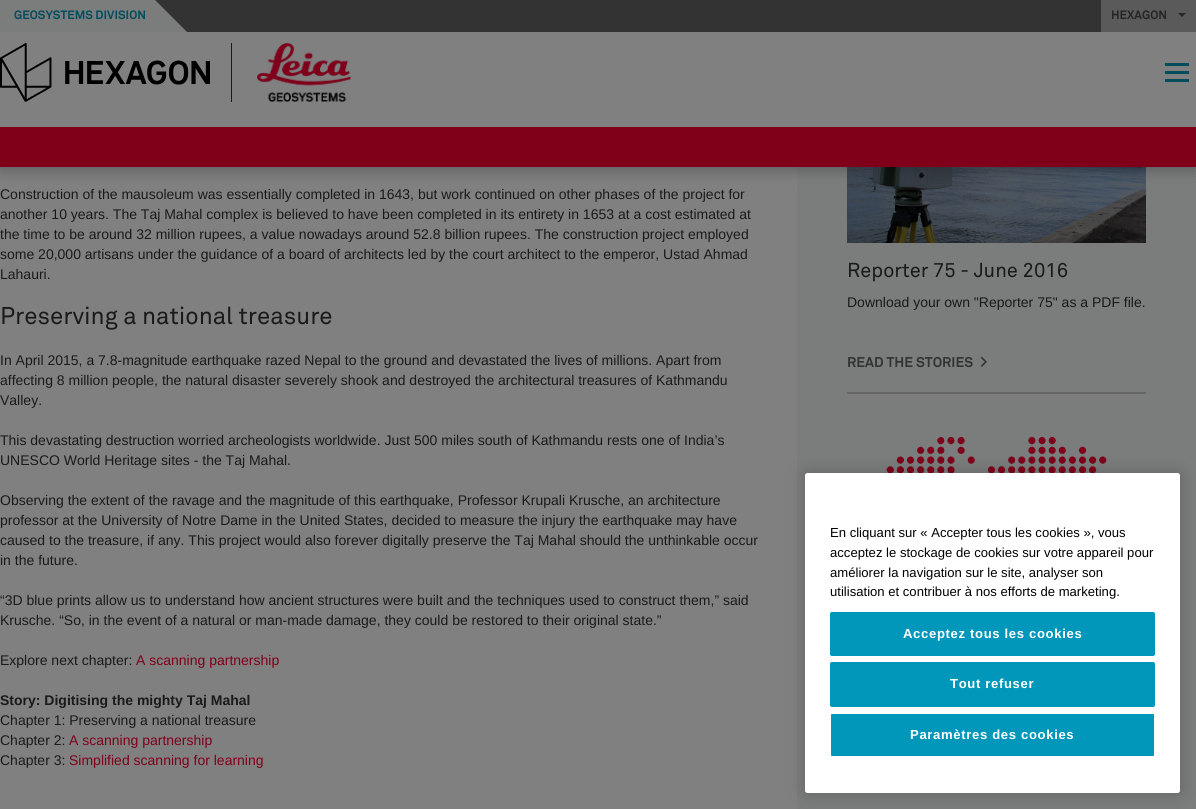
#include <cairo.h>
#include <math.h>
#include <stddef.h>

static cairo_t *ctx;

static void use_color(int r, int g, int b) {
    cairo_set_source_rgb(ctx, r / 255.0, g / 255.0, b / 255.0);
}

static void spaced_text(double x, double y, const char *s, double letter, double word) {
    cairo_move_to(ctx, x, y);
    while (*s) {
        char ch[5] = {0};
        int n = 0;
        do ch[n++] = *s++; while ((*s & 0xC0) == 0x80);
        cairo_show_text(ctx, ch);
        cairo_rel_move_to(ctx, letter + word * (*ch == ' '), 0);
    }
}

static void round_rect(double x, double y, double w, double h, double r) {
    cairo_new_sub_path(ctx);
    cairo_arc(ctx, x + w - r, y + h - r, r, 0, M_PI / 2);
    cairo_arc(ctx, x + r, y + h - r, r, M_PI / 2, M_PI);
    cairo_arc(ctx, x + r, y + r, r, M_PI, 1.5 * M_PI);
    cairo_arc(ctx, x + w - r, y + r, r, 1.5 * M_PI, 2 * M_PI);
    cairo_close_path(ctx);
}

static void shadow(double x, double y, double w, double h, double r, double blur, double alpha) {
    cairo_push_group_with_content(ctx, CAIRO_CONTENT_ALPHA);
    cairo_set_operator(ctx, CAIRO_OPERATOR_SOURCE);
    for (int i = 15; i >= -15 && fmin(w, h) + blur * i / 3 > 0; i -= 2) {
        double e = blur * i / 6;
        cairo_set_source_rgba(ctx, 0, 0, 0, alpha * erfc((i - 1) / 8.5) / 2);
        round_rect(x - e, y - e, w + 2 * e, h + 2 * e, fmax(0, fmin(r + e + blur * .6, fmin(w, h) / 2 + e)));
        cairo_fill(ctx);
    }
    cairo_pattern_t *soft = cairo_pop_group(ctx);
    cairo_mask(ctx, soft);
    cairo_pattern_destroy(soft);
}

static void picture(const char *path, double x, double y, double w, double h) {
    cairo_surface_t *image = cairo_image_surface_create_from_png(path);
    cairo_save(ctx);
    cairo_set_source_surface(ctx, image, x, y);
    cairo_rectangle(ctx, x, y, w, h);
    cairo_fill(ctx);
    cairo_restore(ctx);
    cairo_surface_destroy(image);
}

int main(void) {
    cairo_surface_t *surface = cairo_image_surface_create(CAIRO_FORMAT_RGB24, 1196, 809);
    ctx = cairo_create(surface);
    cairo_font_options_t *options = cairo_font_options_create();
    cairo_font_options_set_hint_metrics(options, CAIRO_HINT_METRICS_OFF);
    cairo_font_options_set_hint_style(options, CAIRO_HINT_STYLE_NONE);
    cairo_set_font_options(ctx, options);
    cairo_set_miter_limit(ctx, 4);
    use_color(128, 128, 128);
    cairo_paint(ctx);
    use_color(123, 124, 124);
    cairo_rectangle(ctx, 797, 167, 399, 642);
    cairo_fill(ctx);
    picture("img3.png", 847, 167, 299, 76);
    use_color(0, 0, 0);
    shadow(0, 2, 1196, 167, 0, 7.5, 0.3);
    use_color(128, 128, 128);
    cairo_rectangle(ctx, 0, 32, 1196, 95);
    cairo_fill(ctx);
    use_color(51, 51, 51);
    cairo_rectangle(ctx, 155, 0, 946, 32);
    cairo_fill(ctx);
    use_color(123, 124, 124);
    cairo_rectangle(ctx, 0, 0, 155, 32);
    cairo_fill(ctx);
    cairo_select_font_face(ctx, "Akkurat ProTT", CAIRO_FONT_SLANT_NORMAL, CAIRO_FONT_WEIGHT_BOLD);
    cairo_set_font_size(ctx, 12);
    use_color(0, 76, 93);
    cairo_move_to(ctx, 14, 19);
    cairo_show_text(ctx, "GEOSYSTEMS DIVISION");
    use_color(123, 124, 124);
    cairo_new_path(ctx);
    cairo_move_to(ctx, 187, 32);
    cairo_line_to(ctx, 155, 32);
    cairo_line_to(ctx, 155, 0);
    cairo_close_path(ctx);
    cairo_fill(ctx);
    use_color(90, 90, 90);
    cairo_rectangle(ctx, 1101, 0, 95, 32);
    cairo_fill(ctx);
    use_color(37, 37, 37);
    cairo_move_to(ctx, 1111, 19);
    cairo_show_text(ctx, "HEXAGON");
    cairo_new_path(ctx);
    cairo_move_to(ctx, 1178, 13);
    cairo_line_to(ctx, 1186, 13);
    cairo_line_to(ctx, 1182, 17);
    cairo_close_path(ctx);
    cairo_fill(ctx);
    use_color(26, 26, 26);
    cairo_rectangle(ctx, 231, 43, 1, 59);
    cairo_fill(ctx);
    picture("img1.png", 0, 43, 210, 59);
    picture("img2.png", 257, 43, 94, 59);
    use_color(0, 76, 93);
    cairo_rectangle(ctx, 1165, 63, 24, 3);
    cairo_fill(ctx);
    cairo_rectangle(ctx, 1165, 71, 24, 3);
    cairo_fill(ctx);
    cairo_rectangle(ctx, 1165, 79, 24, 3);
    cairo_fill(ctx);
    use_color(128, 0, 26);
    cairo_rectangle(ctx, 0, 127, 1196, 40);
    cairo_fill(ctx);
    cairo_select_font_face(ctx, "Liberation Sans", CAIRO_FONT_SLANT_NORMAL, CAIRO_FONT_WEIGHT_NORMAL);
    cairo_set_font_size(ctx, 14);
    use_color(26, 26, 26);
    cairo_move_to(ctx, 0, 199);
    cairo_show_text(ctx, "Construction of the mausoleum was essentially completed in 1643, but work continued on other phases of the project for");
    cairo_move_to(ctx, 0, 219);
    cairo_show_text(ctx, "another 10 years. The Taj Mahal complex is believed to have been completed in its entirety in 1653 at a cost estimated at");
    cairo_move_to(ctx, 0, 239);
    cairo_show_text(ctx, "the time to be around 32 million rupees, a value nowadays around 52.8 billion rupees. The construction project employed");
    cairo_move_to(ctx, 0, 259);
    cairo_show_text(ctx, "some 20,000 artisans under the guidance of a board of architects led by the court architect to the emperor, Ustad Ahmad");
    cairo_move_to(ctx, 0, 279);
    cairo_show_text(ctx, "Lahauri.");
    cairo_select_font_face(ctx, "Akkurat ProTT", CAIRO_FONT_SLANT_NORMAL, CAIRO_FONT_WEIGHT_NORMAL);
    cairo_set_font_size(ctx, 24);
    cairo_move_to(ctx, 0, 324);
    cairo_show_text(ctx, "Preserving a national treasure");
    cairo_select_font_face(ctx, "Liberation Sans", CAIRO_FONT_SLANT_NORMAL, CAIRO_FONT_WEIGHT_NORMAL);
    cairo_set_font_size(ctx, 14);
    cairo_move_to(ctx, 0, 365);
    cairo_show_text(ctx, "In April 2015, a 7.8-magnitude earthquake razed Nepal to the ground and devastated the lives of millions. Apart from");
    cairo_move_to(ctx, 0, 385);
    cairo_show_text(ctx, "affecting 8 million people, the natural disaster severely shook and destroyed the architectural treasures of Kathmandu");
    cairo_move_to(ctx, 0, 405);
    cairo_show_text(ctx, "Valley.");
    cairo_move_to(ctx, 0, 445);
    cairo_show_text(ctx, "This devastating destruction worried archeologists worldwide. Just 500 miles south of Kathmandu rests one of India’s");
    cairo_move_to(ctx, 0, 465);
    cairo_show_text(ctx, "UNESCO World Heritage sites - the Taj Mahal.");
    cairo_move_to(ctx, 0, 505);
    cairo_show_text(ctx, "Observing the extent of the ravage and the magnitude of this earthquake, Professor Krupali Krusche, an architecture");
    cairo_move_to(ctx, 0, 525);
    cairo_show_text(ctx, "professor at the University of Notre Dame in the United States, decided to measure the injury the earthquake may have");
    cairo_move_to(ctx, 0, 545);
    cairo_show_text(ctx, "caused to the treasure, if any. This project would also forever digitally preserve the Taj Mahal should the unthinkable occur");
    cairo_move_to(ctx, 0, 565);
    cairo_show_text(ctx, "in the future.");
    cairo_move_to(ctx, 0, 605);
    cairo_show_text(ctx, "“3D blue prints allow us to understand how ancient structures were built and the techniques used to construct them,” said");
    cairo_move_to(ctx, 0, 625);
    cairo_show_text(ctx, "Krusche. “So, in the event of a natural or man-made damage, they could be restored to their original state.”");
    cairo_move_to(ctx, 0, 665);
    cairo_show_text(ctx, "Explore next chapter:");
    use_color(128, 0, 26);
    cairo_move_to(ctx, 136, 665);
    cairo_show_text(ctx, "A scanning partnership");
    cairo_select_font_face(ctx, "Liberation Sans", CAIRO_FONT_SLANT_NORMAL, CAIRO_FONT_WEIGHT_BOLD);
    use_color(26, 26, 26);
    cairo_move_to(ctx, 0, 705);
    cairo_show_text(ctx, "Story: Digitising the mighty Taj Mahal");
    cairo_select_font_face(ctx, "Liberation Sans", CAIRO_FONT_SLANT_NORMAL, CAIRO_FONT_WEIGHT_NORMAL);
    cairo_move_to(ctx, 0, 725);
    cairo_show_text(ctx, "Chapter 1: Preserving a national treasure");
    cairo_move_to(ctx, 0, 745);
    cairo_show_text(ctx, "Chapter 2:");
    use_color(128, 0, 26);
    cairo_move_to(ctx, 69, 745);
    cairo_show_text(ctx, "A scanning partnership");
    use_color(26, 26, 26);
    cairo_move_to(ctx, 0, 765);
    cairo_show_text(ctx, "Chapter 3:");
    use_color(128, 0, 26);
    cairo_move_to(ctx, 69, 765);
    cairo_show_text(ctx, "Simplified scanning for learning");
    use_color(102, 102, 102);
    cairo_rectangle(ctx, 847, 392, 299, 2);
    cairo_fill(ctx);
    cairo_select_font_face(ctx, "Akkurat ProTT", CAIRO_FONT_SLANT_NORMAL, CAIRO_FONT_WEIGHT_NORMAL);
    cairo_set_font_size(ctx, 20);
    use_color(26, 26, 26);
    cairo_move_to(ctx, 847, 277);
    cairo_show_text(ctx, "Reporter 75 - June 2016");
    cairo_select_font_face(ctx, "Liberation Sans", CAIRO_FONT_SLANT_NORMAL, CAIRO_FONT_WEIGHT_NORMAL);
    cairo_set_font_size(ctx, 14);
    cairo_move_to(ctx, 847, 307);
    cairo_show_text(ctx, "Download your own \"Reporter 75\" as a PDF file.");
    cairo_select_font_face(ctx, "Akkurat ProTT", CAIRO_FONT_SLANT_NORMAL, CAIRO_FONT_WEIGHT_BOLD);
    use_color(51, 51, 51);
    cairo_move_to(ctx, 847, 367);
    cairo_show_text(ctx, "READ THE STORIES");
    cairo_set_font_size(ctx, 16);
    cairo_move_to(ctx, 980, 367);
    cairo_show_text(ctx, ">");
    picture("img4.png", 886, 437, 221, 36);
    use_color(0, 0, 0);
    shadow(805, 473, 375, 320, 2.5, 9, 0.2);
    use_color(255, 255, 255);
    round_rect(805, 473, 375, 320, 2.5);
    cairo_fill(ctx);
    cairo_select_font_face(ctx, "Liberation Sans", CAIRO_FONT_SLANT_NORMAL, CAIRO_FONT_WEIGHT_NORMAL);
    cairo_set_font_size(ctx, 13.1);
    use_color(0, 0, 0);
    cairo_move_to(ctx, 830, 537);
    cairo_show_text(ctx, "En cliquant sur « Accepter tous les cookies », vous");
    cairo_move_to(ctx, 830, 557);
    cairo_show_text(ctx, "acceptez le stockage de cookies sur votre appareil pour");
    cairo_move_to(ctx, 830, 577);
    cairo_show_text(ctx, "améliorer la navigation sur le site, analyser son");
    cairo_move_to(ctx, 830, 596);
    cairo_show_text(ctx, "utilisation et contribuer à nos efforts de marketing.");
    use_color(0, 151, 186);
    round_rect(830.5, 612.5, 324, 43, 1.5);
    cairo_fill_preserve(ctx);
    cairo_set_line_width(ctx, 1);
    cairo_stroke(ctx);
    cairo_select_font_face(ctx, "Liberation Sans", CAIRO_FONT_SLANT_NORMAL, CAIRO_FONT_WEIGHT_BOLD);
    use_color(255, 255, 255);
    spaced_text(903, 638, "Acceptez tous les cookies", 0.65, 0);
    use_color(0, 151, 186);
    round_rect(830.5, 662.5, 324, 44, 1.5);
    cairo_fill_preserve(ctx);
    cairo_stroke(ctx);
    use_color(255, 255, 255);
    spaced_text(950, 688, "Tout refuser", 0.65, 0);
    use_color(0, 151, 186);
    round_rect(830.5, 713.5, 324, 43, 1.5);
    cairo_fill_preserve(ctx);
    use_color(255, 255, 255);
    cairo_stroke(ctx);
    spaced_text(910, 739, "Paramètres des cookies", 0.65, 0);
    cairo_surface_write_to_png(surface, "result.png");
    cairo_font_options_destroy(options);
    cairo_destroy(ctx);
    cairo_surface_destroy(surface);
    return 0;
}
